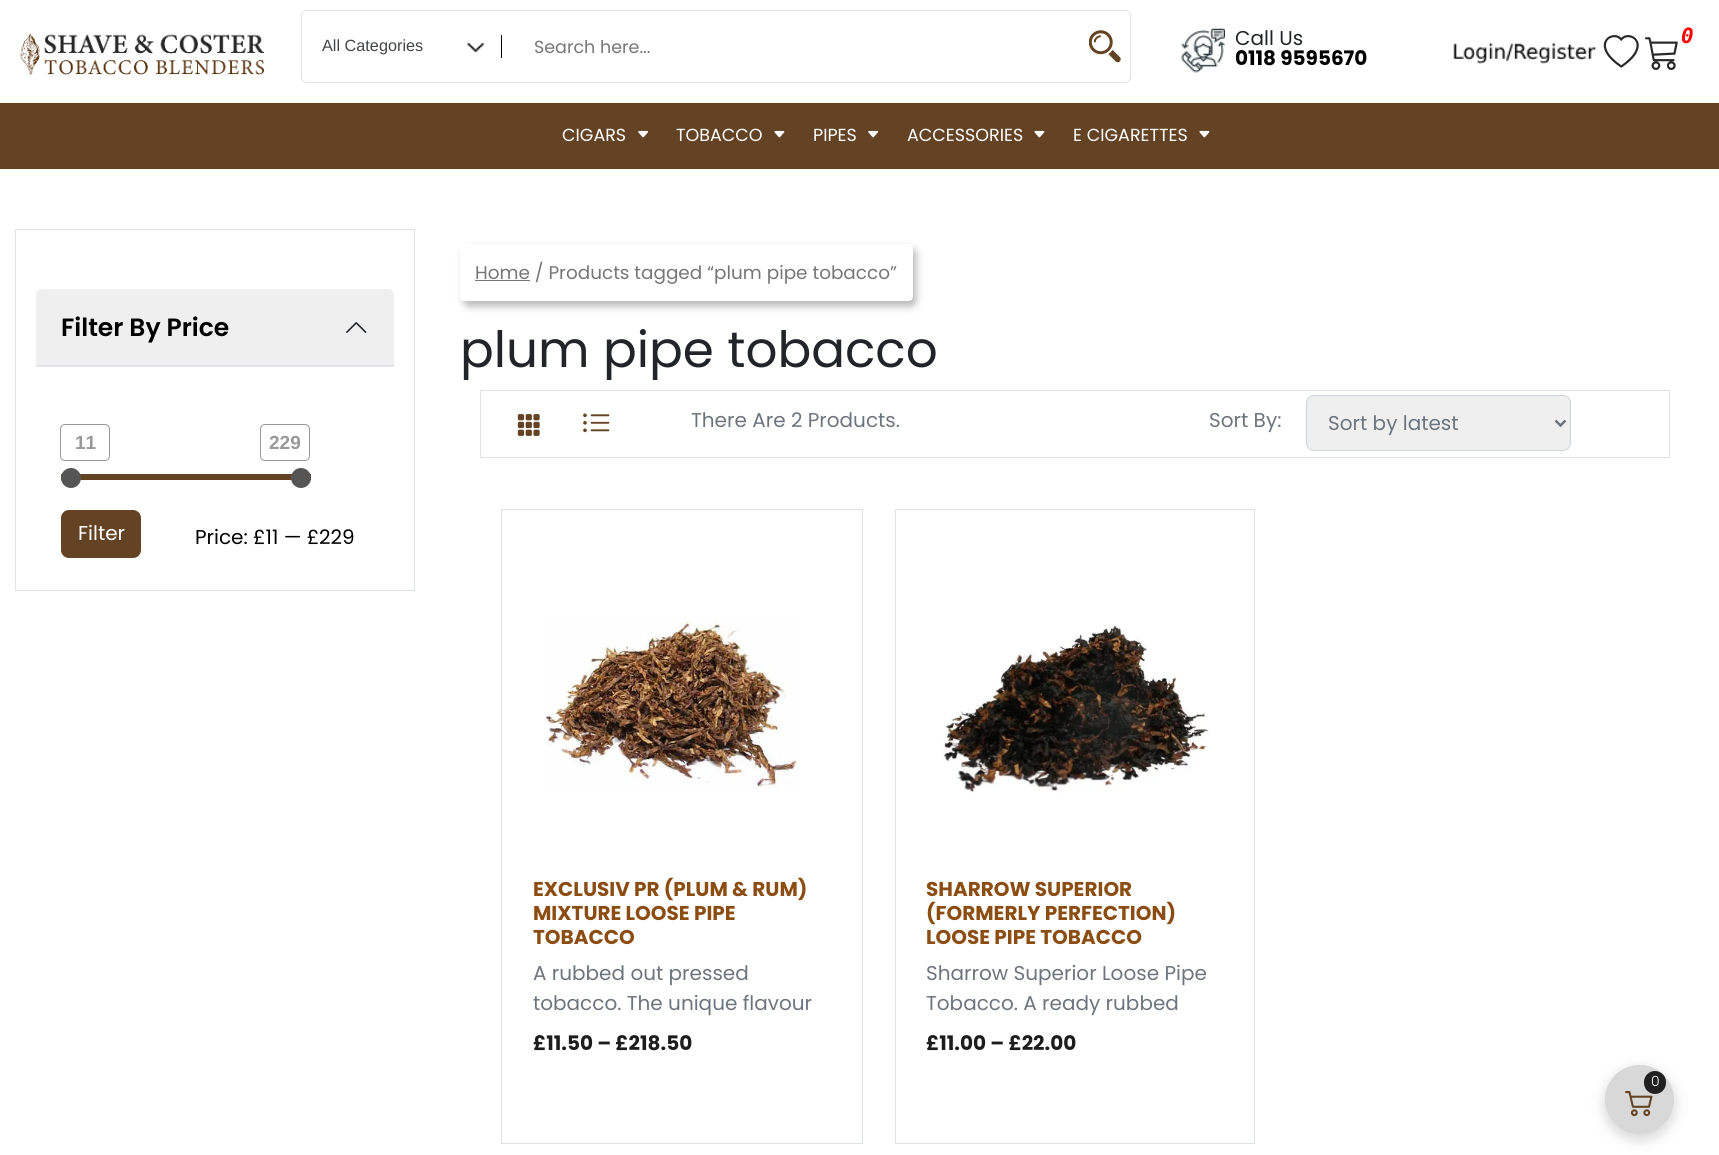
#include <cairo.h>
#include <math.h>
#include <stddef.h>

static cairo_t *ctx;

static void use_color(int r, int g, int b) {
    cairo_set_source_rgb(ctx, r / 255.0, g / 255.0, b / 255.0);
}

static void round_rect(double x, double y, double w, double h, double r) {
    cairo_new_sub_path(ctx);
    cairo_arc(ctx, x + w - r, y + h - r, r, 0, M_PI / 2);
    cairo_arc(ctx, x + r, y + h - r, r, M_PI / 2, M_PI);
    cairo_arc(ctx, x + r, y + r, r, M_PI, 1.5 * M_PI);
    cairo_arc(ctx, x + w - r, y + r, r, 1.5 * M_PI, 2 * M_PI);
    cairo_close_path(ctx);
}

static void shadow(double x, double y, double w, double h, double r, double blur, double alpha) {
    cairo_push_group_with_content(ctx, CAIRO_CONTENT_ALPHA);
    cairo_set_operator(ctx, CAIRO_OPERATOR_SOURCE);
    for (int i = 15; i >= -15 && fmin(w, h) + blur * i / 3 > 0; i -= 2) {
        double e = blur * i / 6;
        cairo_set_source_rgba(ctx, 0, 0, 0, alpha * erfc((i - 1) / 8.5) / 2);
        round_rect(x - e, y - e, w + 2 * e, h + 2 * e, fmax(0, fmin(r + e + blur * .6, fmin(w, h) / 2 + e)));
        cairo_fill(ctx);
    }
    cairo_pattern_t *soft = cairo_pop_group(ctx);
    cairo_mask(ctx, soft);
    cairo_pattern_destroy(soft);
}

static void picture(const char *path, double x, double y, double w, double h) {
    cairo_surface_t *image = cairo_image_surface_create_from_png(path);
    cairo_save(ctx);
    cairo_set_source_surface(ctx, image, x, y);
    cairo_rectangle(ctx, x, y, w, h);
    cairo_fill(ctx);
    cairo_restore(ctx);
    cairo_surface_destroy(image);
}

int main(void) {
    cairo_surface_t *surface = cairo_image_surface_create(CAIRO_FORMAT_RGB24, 1719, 1155);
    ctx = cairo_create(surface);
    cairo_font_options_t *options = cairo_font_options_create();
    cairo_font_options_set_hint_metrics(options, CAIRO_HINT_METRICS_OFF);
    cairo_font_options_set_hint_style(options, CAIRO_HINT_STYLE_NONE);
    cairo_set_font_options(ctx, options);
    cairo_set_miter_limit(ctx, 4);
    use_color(255, 255, 255);
    cairo_paint(ctx);
    picture("img1.png", 20, 33, 244, 42);
    round_rect(301.5, 10.5, 829, 72, 5.5);
    use_color(226, 225, 230);
    cairo_set_line_width(ctx, 1);
    cairo_stroke(ctx);
    cairo_select_font_face(ctx, "Liberation Sans", CAIRO_FONT_SLANT_NORMAL, CAIRO_FONT_WEIGHT_NORMAL);
    cairo_set_font_size(ctx, 16.25);
    use_color(67, 69, 75);
    cairo_move_to(ctx, 322, 51);
    cairo_show_text(ctx, "All Categories");
    picture("img2.png", 467, 43, 17, 9);
    use_color(0, 0, 0);
    cairo_rectangle(ctx, 501, 35, 1, 23);
    cairo_fill(ctx);
    cairo_select_font_face(ctx, "Poppins", CAIRO_FONT_SLANT_NORMAL, CAIRO_FONT_WEIGHT_NORMAL);
    cairo_set_font_size(ctx, 17.5);
    use_color(118, 118, 118);
    cairo_move_to(ctx, 534, 53);
    cairo_show_text(ctx, "Search here...");
    picture("img3.png", 1089, 30, 32, 33);
    picture("img4.png", 1181, 28, 44, 45);
    cairo_set_font_size(ctx, 20);
    use_color(33, 37, 41);
    cairo_move_to(ctx, 1235, 45);
    cairo_show_text(ctx, "Call Us");
    cairo_select_font_face(ctx, "Poppins", CAIRO_FONT_SLANT_NORMAL, CAIRO_FONT_WEIGHT_BOLD);
    use_color(0, 0, 0);
    cairo_move_to(ctx, 1235, 65);
    cairo_show_text(ctx, "0118 9595670");
    picture("img5.png", 1453, 42, 144, 22);
    picture("img6.png", 1603, 35, 36, 33);
    picture("img7.png", 1645, 37, 33, 33);
    cairo_select_font_face(ctx, "DejaVu Sans Mono", CAIRO_FONT_SLANT_ITALIC, CAIRO_FONT_WEIGHT_BOLD);
    cairo_set_font_size(ctx, 21);
    use_color(255, 0, 0);
    cairo_move_to(ctx, 1681, 43);
    cairo_show_text(ctx, "0");
    use_color(100, 67, 36);
    cairo_rectangle(ctx, 0, 103, 1719, 66);
    cairo_fill(ctx);
    cairo_select_font_face(ctx, "Poppins", CAIRO_FONT_SLANT_NORMAL, CAIRO_FONT_WEIGHT_NORMAL);
    cairo_set_font_size(ctx, 17.5);
    use_color(255, 255, 255);
    cairo_move_to(ctx, 562, 141);
    cairo_show_text(ctx, "CIGARS");
    picture("img8.png", 638, 130, 11, 8);
    cairo_move_to(ctx, 676, 141);
    cairo_show_text(ctx, "TOBACCO");
    picture("img9.png", 774, 130, 11, 8);
    cairo_move_to(ctx, 813, 141);
    cairo_show_text(ctx, "PIPES");
    picture("img8.png", 868, 130, 11, 8);
    cairo_move_to(ctx, 907, 141);
    cairo_show_text(ctx, "ACCESSORIES");
    picture("img9.png", 1034, 130, 11, 8);
    cairo_move_to(ctx, 1073, 141);
    cairo_show_text(ctx, "E CIGARETTES");
    picture("img9.png", 1199, 130, 11, 8);
    cairo_rectangle(ctx, 15.5, 229.5, 399, 361);
    use_color(222, 226, 230);
    cairo_stroke(ctx);
    use_color(235, 235, 235);
    cairo_rectangle(ctx, 36, 366, 358, 1);
    cairo_fill(ctx);
    use_color(239, 239, 239);
    cairo_new_path(ctx);
    cairo_move_to(ctx, 42, 289);
    cairo_line_to(ctx, 388, 289);
    cairo_curve_to(ctx, 391.5, 289, 394, 291.5, 394, 295);
    cairo_line_to(ctx, 394, 366);
    cairo_line_to(ctx, 36, 366);
    cairo_line_to(ctx, 36, 295);
    cairo_curve_to(ctx, 36, 291.5, 38.5, 289, 42, 289);
    cairo_close_path(ctx);
    cairo_fill(ctx);
    use_color(222, 226, 230);
    cairo_rectangle(ctx, 36, 365, 358, 1);
    cairo_fill(ctx);
    cairo_select_font_face(ctx, "Poppins SemiBold", CAIRO_FONT_SLANT_NORMAL, CAIRO_FONT_WEIGHT_NORMAL);
    cairo_set_font_size(ctx, 25);
    use_color(0, 0, 0);
    cairo_move_to(ctx, 61, 336);
    cairo_show_text(ctx, "Filter By Price");
    picture("img10.png", 346, 322, 21, 11);
    round_rect(60.5, 424.5, 49, 36, 4.5);
    use_color(153, 153, 153);
    cairo_stroke(ctx);
    cairo_select_font_face(ctx, "Liberation Sans", CAIRO_FONT_SLANT_NORMAL, CAIRO_FONT_WEIGHT_BOLD);
    cairo_set_font_size(ctx, 19);
    cairo_move_to(ctx, 75, 449);
    cairo_show_text(ctx, "11");
    round_rect(260.5, 424.5, 49, 36, 4.5);
    cairo_stroke(ctx);
    cairo_move_to(ctx, 269, 449);
    cairo_show_text(ctx, "229");
    use_color(100, 67, 36);
    cairo_rectangle(ctx, 61, 474, 250, 6);
    cairo_fill(ctx);
    use_color(85, 85, 85);
    cairo_arc(ctx, 71, 478, 10, 0, 2 * M_PI);
    cairo_fill(ctx);
    cairo_arc(ctx, 301, 478, 10, 0, 2 * M_PI);
    cairo_fill(ctx);
    use_color(100, 67, 36);
    round_rect(61, 510, 80, 48, 8);
    cairo_fill(ctx);
    cairo_select_font_face(ctx, "Poppins", CAIRO_FONT_SLANT_NORMAL, CAIRO_FONT_WEIGHT_NORMAL);
    cairo_set_font_size(ctx, 20);
    use_color(255, 255, 255);
    cairo_move_to(ctx, 78, 540);
    cairo_show_text(ctx, "Filter");
    use_color(0, 0, 0);
    cairo_move_to(ctx, 195, 544);
    cairo_show_text(ctx, "Price: £11 — £229");
    cairo_save(ctx);
    cairo_set_fill_rule(ctx, CAIRO_FILL_RULE_EVEN_ODD);
    cairo_new_path(ctx);
    cairo_move_to(ctx, 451, 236);
    cairo_line_to(ctx, 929, 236);
    cairo_line_to(ctx, 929, 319);
    cairo_line_to(ctx, 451, 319);
    cairo_close_path(ctx);
    cairo_move_to(ctx, 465, 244);
    cairo_line_to(ctx, 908, 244);
    cairo_curve_to(ctx, 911, 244, 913, 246, 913, 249);
    cairo_line_to(ctx, 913, 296);
    cairo_curve_to(ctx, 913, 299, 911, 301, 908, 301);
    cairo_line_to(ctx, 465, 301);
    cairo_curve_to(ctx, 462, 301, 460, 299, 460, 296);
    cairo_line_to(ctx, 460, 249);
    cairo_curve_to(ctx, 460, 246, 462, 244, 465, 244);
    cairo_close_path(ctx);
    cairo_clip(ctx);
    use_color(181, 181, 181);
    shadow(464, 249, 452, 57, 5, 4, 1);
    cairo_restore(ctx);
    use_color(118, 118, 118);
    cairo_rectangle(ctx, 475, 280, 55, 1);
    cairo_fill(ctx);
    cairo_set_font_size(ctx, 18.4);
    cairo_move_to(ctx, 475, 279);
    cairo_show_text(ctx, "Home / Products tagged “plum pipe tobacco”");
    cairo_set_font_size(ctx, 50);
    use_color(33, 37, 41);
    cairo_move_to(ctx, 460, 367);
    cairo_show_text(ctx, "plum pipe tobacco");
    cairo_rectangle(ctx, 480.5, 390.5, 1189, 67);
    use_color(222, 226, 230);
    cairo_stroke(ctx);
    picture("img11.png", 517, 414, 23, 22);
    picture("img12.png", 583, 413, 27, 20);
    cairo_set_font_size(ctx, 20);
    use_color(108, 117, 125);
    cairo_move_to(ctx, 691, 427);
    cairo_show_text(ctx, "There Are 2 Products.");
    cairo_move_to(ctx, 1209, 427);
    cairo_show_text(ctx, "Sort By:");
    use_color(239, 239, 239);
    round_rect(1306.5, 395.5, 264, 55, 7.5);
    cairo_fill_preserve(ctx);
    use_color(206, 212, 218);
    cairo_stroke(ctx);
    cairo_new_path(ctx);
    cairo_move_to(ctx, 1555.5, 420.5);
    cairo_line_to(ctx, 1560.5, 425.5);
    cairo_line_to(ctx, 1565.5, 420.5);
    use_color(108, 117, 125);
    cairo_set_line_width(ctx, 2.5);
    cairo_stroke(ctx);
    cairo_move_to(ctx, 1328, 430);
    cairo_show_text(ctx, "Sort by latest");
    cairo_rectangle(ctx, 501.5, 509.5, 361, 634);
    use_color(222, 226, 230);
    cairo_set_line_width(ctx, 1);
    cairo_stroke(ctx);
    picture("img13.png", 544, 621, 256, 168);
    cairo_select_font_face(ctx, "Poppins", CAIRO_FONT_SLANT_NORMAL, CAIRO_FONT_WEIGHT_BOLD);
    use_color(139, 77, 18);
    cairo_move_to(ctx, 533, 896);
    cairo_show_text(ctx, "EXCLUSIV PR (PLUM & RUM)");
    cairo_move_to(ctx, 533, 920);
    cairo_show_text(ctx, "MIXTURE LOOSE PIPE");
    cairo_move_to(ctx, 533, 944);
    cairo_show_text(ctx, "TOBACCO");
    cairo_select_font_face(ctx, "Poppins", CAIRO_FONT_SLANT_NORMAL, CAIRO_FONT_WEIGHT_NORMAL);
    use_color(108, 117, 125);
    cairo_move_to(ctx, 533, 980);
    cairo_show_text(ctx, "A rubbed out pressed");
    cairo_move_to(ctx, 533, 1010);
    cairo_show_text(ctx, "tobacco. The unique flavour");
    cairo_select_font_face(ctx, "Poppins", CAIRO_FONT_SLANT_NORMAL, CAIRO_FONT_WEIGHT_BOLD);
    use_color(29, 29, 29);
    cairo_move_to(ctx, 533, 1050);
    cairo_show_text(ctx, "£11.50 – £218.50");
    cairo_rectangle(ctx, 895.5, 509.5, 359, 634);
    use_color(222, 226, 230);
    cairo_stroke(ctx);
    picture("img14.png", 943, 625, 266, 169);
    use_color(139, 77, 18);
    cairo_move_to(ctx, 926, 896);
    cairo_show_text(ctx, "SHARROW SUPERIOR");
    cairo_move_to(ctx, 926, 920);
    cairo_show_text(ctx, "(FORMERLY PERFECTION)");
    cairo_move_to(ctx, 926, 944);
    cairo_show_text(ctx, "LOOSE PIPE TOBACCO");
    cairo_select_font_face(ctx, "Poppins", CAIRO_FONT_SLANT_NORMAL, CAIRO_FONT_WEIGHT_NORMAL);
    use_color(108, 117, 125);
    cairo_move_to(ctx, 926, 980);
    cairo_show_text(ctx, "Sharrow Superior Loose Pipe");
    cairo_move_to(ctx, 926, 1010);
    cairo_show_text(ctx, "Tobacco. A ready rubbed");
    cairo_select_font_face(ctx, "Poppins", CAIRO_FONT_SLANT_NORMAL, CAIRO_FONT_WEIGHT_BOLD);
    use_color(29, 29, 29);
    cairo_move_to(ctx, 926, 1050);
    cairo_show_text(ctx, "£11.00 – £22.00");
    use_color(0, 0, 0);
    shadow(1605, 1070, 69, 69, 34.5, 7, 0.17);
    use_color(216, 216, 216);
    cairo_arc(ctx, 1639.5, 1099.5, 34.5, 0, 2 * M_PI);
    cairo_fill(ctx);
    picture("img15.png", 1625, 1091, 28, 26);
    use_color(33, 33, 33);
    round_rect(1644, 1071, 22, 23, 11);
    cairo_fill(ctx);
    cairo_select_font_face(ctx, "Poppins Light", CAIRO_FONT_SLANT_NORMAL, CAIRO_FONT_WEIGHT_NORMAL);
    cairo_set_font_size(ctx, 14);
    use_color(255, 255, 255);
    cairo_move_to(ctx, 1651, 1086);
    cairo_show_text(ctx, "0");
    cairo_surface_write_to_png(surface, "result.png");
    cairo_font_options_destroy(options);
    cairo_destroy(ctx);
    cairo_surface_destroy(surface);
    return 0;
}
